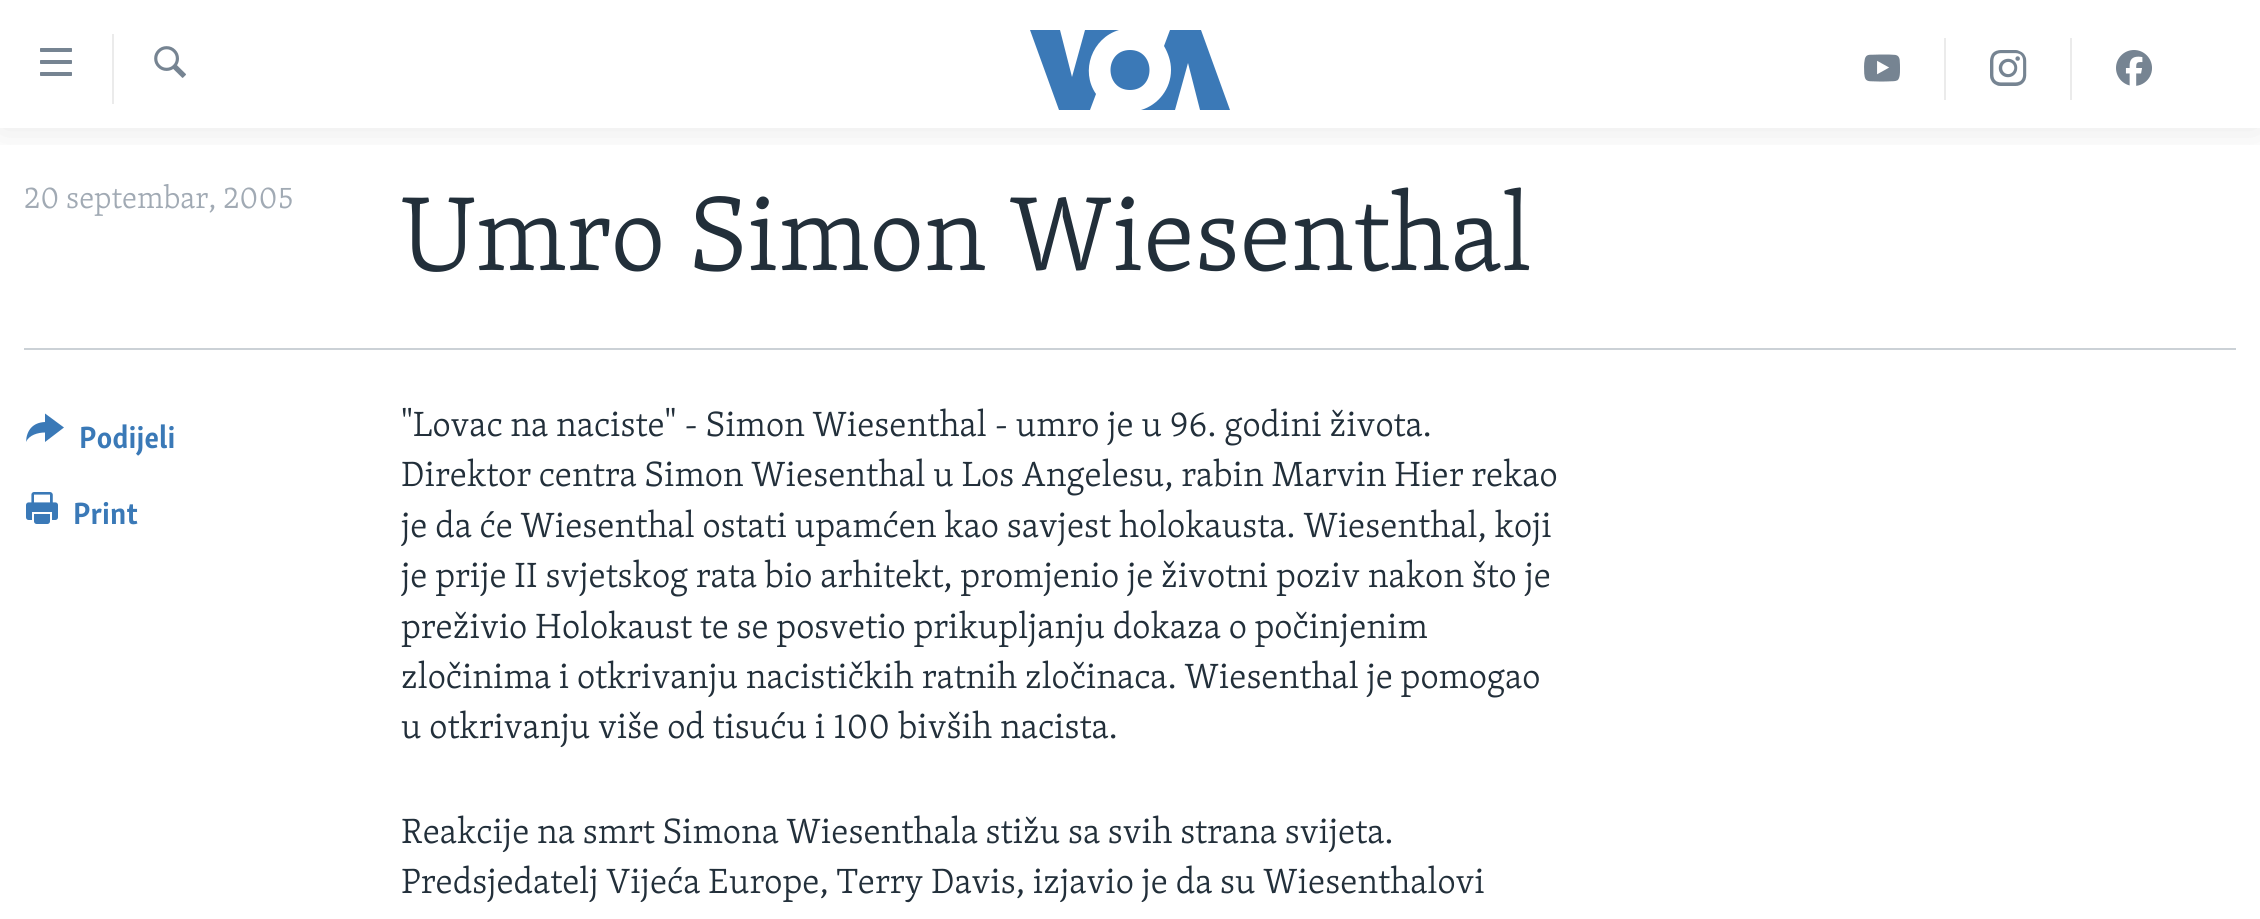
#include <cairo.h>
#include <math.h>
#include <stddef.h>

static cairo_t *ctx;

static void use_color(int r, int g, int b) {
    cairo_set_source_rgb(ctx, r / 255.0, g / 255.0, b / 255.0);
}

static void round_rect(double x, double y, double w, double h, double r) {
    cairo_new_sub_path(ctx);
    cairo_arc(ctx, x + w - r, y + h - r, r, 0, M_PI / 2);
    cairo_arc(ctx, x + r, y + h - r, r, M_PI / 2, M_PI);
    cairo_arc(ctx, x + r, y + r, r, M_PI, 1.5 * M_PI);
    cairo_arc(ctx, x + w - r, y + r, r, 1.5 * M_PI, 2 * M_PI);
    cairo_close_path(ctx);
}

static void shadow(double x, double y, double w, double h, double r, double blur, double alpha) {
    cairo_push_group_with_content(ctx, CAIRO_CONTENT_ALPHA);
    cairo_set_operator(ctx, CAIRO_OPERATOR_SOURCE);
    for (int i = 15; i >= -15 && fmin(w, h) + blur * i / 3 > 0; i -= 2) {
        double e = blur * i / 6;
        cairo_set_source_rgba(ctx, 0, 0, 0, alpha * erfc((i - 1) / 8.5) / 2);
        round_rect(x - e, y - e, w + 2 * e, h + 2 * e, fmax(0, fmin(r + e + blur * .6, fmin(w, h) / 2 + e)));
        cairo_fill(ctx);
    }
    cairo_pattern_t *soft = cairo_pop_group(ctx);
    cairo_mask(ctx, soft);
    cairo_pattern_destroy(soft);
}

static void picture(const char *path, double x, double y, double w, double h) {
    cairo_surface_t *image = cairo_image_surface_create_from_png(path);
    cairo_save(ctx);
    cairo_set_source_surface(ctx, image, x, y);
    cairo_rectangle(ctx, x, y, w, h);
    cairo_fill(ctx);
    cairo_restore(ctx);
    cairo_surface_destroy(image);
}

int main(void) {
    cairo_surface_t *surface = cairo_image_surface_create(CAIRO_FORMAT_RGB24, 2260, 919);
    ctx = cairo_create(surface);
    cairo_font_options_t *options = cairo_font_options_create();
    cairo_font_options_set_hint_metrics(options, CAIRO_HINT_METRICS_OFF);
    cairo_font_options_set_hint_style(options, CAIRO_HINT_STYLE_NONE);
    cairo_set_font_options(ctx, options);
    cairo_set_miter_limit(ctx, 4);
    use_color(255, 255, 255);
    cairo_paint(ctx);
    cairo_save(ctx);
    cairo_rectangle(ctx, 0, 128, 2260, 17);
    cairo_clip(ctx);
    use_color(0, 0, 0);
    shadow(0, 0, 2260, 128, 0, 20, 0.1);
    cairo_restore(ctx);
    picture("img1.png", 40, 48, 32, 28);
    use_color(235, 235, 235);
    cairo_rectangle(ctx, 112, 34, 2, 70);
    cairo_fill(ctx);
    picture("img2.png", 154, 46, 32, 32);
    use_color(59, 121, 183);
    cairo_new_path(ctx);
    cairo_move_to(ctx, 1096, 94);
    cairo_line_to(ctx, 1090, 110);
    cairo_line_to(ctx, 1059, 110);
    cairo_line_to(ctx, 1030, 30);
    cairo_line_to(ctx, 1060, 30);
    cairo_line_to(ctx, 1072, 77);
    cairo_line_to(ctx, 1085, 30);
    cairo_line_to(ctx, 1119, 30);
    cairo_curve_to(ctx, 1092, 38, 1080, 71, 1096, 94);
    cairo_close_path(ctx);
    cairo_move_to(ctx, 1130, 50);
    cairo_curve_to(ctx, 1104, 50, 1104, 90, 1130, 90);
    cairo_curve_to(ctx, 1156, 90, 1156, 50, 1130, 50);
    cairo_close_path(ctx);
    cairo_move_to(ctx, 1171, 70);
    cairo_curve_to(ctx, 1171, 89, 1158, 105, 1141, 110);
    cairo_line_to(ctx, 1175, 110);
    cairo_line_to(ctx, 1188, 63);
    cairo_line_to(ctx, 1200, 110);
    cairo_line_to(ctx, 1230, 110);
    cairo_line_to(ctx, 1201, 30);
    cairo_line_to(ctx, 1170, 30);
    cairo_line_to(ctx, 1164, 46);
    cairo_curve_to(ctx, 1168, 53, 1171, 61, 1171, 70);
    cairo_close_path(ctx);
    cairo_fill(ctx);
    use_color(235, 235, 235);
    cairo_rectangle(ctx, 1944, 38, 2, 62);
    cairo_fill(ctx);
    picture("img3.png", 1864, 54, 36, 28);
    cairo_rectangle(ctx, 2070, 38, 2, 62);
    cairo_fill(ctx);
    picture("img4.png", 1990, 50, 37, 36);
    picture("img5.png", 2116, 50, 36, 36);
    cairo_select_font_face(ctx, "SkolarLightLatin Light", CAIRO_FONT_SLANT_NORMAL, CAIRO_FONT_WEIGHT_NORMAL);
    cairo_set_font_size(ctx, 31.5);
    use_color(161, 170, 180);
    cairo_move_to(ctx, 24, 208);
    cairo_show_text(ctx, "20 septembar, 2005");
    cairo_set_font_size(ctx, 108);
    use_color(34, 47, 58);
    cairo_move_to(ctx, 401, 270);
    cairo_show_text(ctx, "Umro Simon Wiesenthal");
    use_color(203, 209, 214);
    cairo_rectangle(ctx, 24, 348, 2212, 2);
    cairo_fill(ctx);
    use_color(58, 121, 183);
    cairo_new_path(ctx);
    cairo_move_to(ctx, 26, 442);
    cairo_curve_to(ctx, 26.5, 430, 33, 422.5, 45, 422);
    cairo_line_to(ctx, 45, 413.5);
    cairo_line_to(ctx, 64, 427.5);
    cairo_line_to(ctx, 45, 442);
    cairo_line_to(ctx, 45, 432.5);
    cairo_curve_to(ctx, 38, 432.5, 29, 435, 26, 442);
    cairo_close_path(ctx);
    cairo_fill(ctx);
    cairo_select_font_face(ctx, "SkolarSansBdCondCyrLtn", CAIRO_FONT_SLANT_NORMAL, CAIRO_FONT_WEIGHT_BOLD);
    cairo_set_font_size(ctx, 31.5);
    cairo_move_to(ctx, 79, 448);
    cairo_show_text(ctx, "Podijeli");
    picture("img6.png", 26, 492, 32, 32);
    cairo_move_to(ctx, 73, 524);
    cairo_show_text(ctx, "Print");
    cairo_select_font_face(ctx, "SkolarLightLatin Light", CAIRO_FONT_SLANT_NORMAL, CAIRO_FONT_WEIGHT_NORMAL);
    cairo_set_font_size(ctx, 36);
    use_color(34, 47, 58);
    cairo_move_to(ctx, 401, 436);
    cairo_show_text(ctx, "\"Lovac na naciste\" - Simon Wiesenthal - umro je u 96. godini života.");
    cairo_move_to(ctx, 401, 486);
    cairo_show_text(ctx, "Direktor centra Simon Wiesenthal u Los Angelesu, rabin Marvin Hier rekao");
    cairo_move_to(ctx, 401, 537);
    cairo_show_text(ctx, "je da će Wiesenthal ostati upamćen kao savjest holokausta. Wiesenthal, koji");
    cairo_move_to(ctx, 401, 587);
    cairo_show_text(ctx, "je prije II svjetskog rata bio arhitekt, promjenio je životni poziv nakon što je");
    cairo_move_to(ctx, 401, 638);
    cairo_show_text(ctx, "preživio Holokaust te se posvetio prikupljanju dokaza o počinjenim");
    cairo_move_to(ctx, 401, 688);
    cairo_show_text(ctx, "zločinima i otkrivanju nacističkih ratnih zločinaca. Wiesenthal je pomogao");
    cairo_move_to(ctx, 401, 738);
    cairo_show_text(ctx, "u otkrivanju više od tisuću i 100 bivših nacista.");
    cairo_move_to(ctx, 401, 843);
    cairo_show_text(ctx, "Reakcije na smrt Simona Wiesenthala stižu sa svih strana svijeta.");
    cairo_move_to(ctx, 401, 893);
    cairo_show_text(ctx, "Predsjedatelj Vijeća Europe, Terry Davis, izjavio je da su Wiesenthalovi");
    cairo_surface_write_to_png(surface, "result.png");
    cairo_font_options_destroy(options);
    cairo_destroy(ctx);
    cairo_surface_destroy(surface);
    return 0;
}
